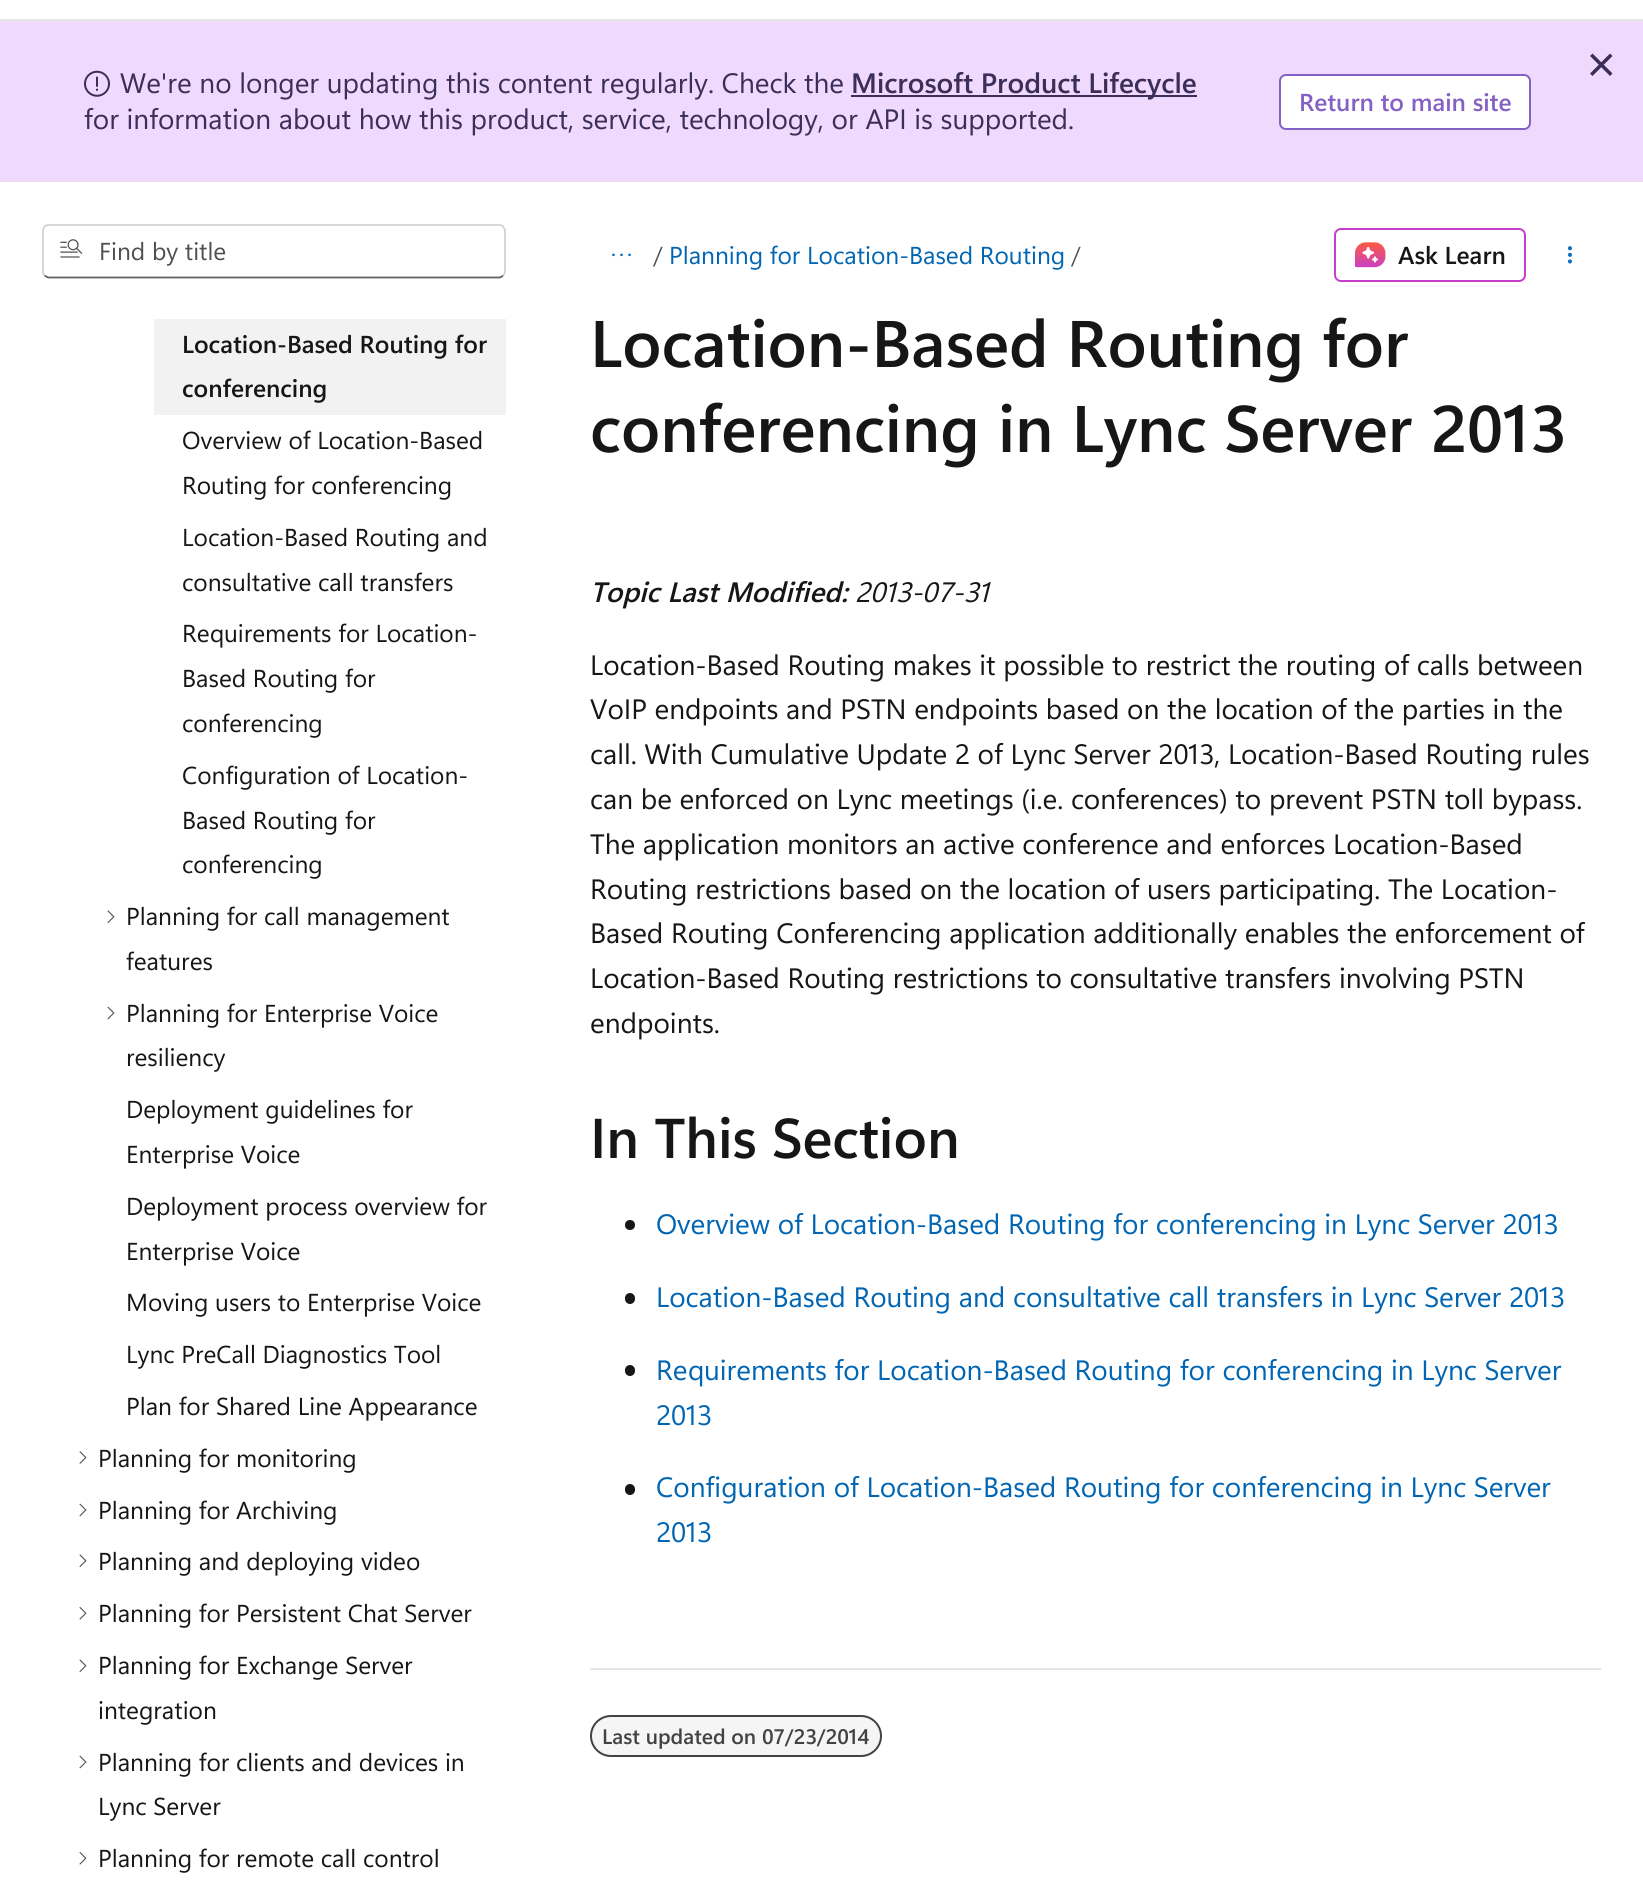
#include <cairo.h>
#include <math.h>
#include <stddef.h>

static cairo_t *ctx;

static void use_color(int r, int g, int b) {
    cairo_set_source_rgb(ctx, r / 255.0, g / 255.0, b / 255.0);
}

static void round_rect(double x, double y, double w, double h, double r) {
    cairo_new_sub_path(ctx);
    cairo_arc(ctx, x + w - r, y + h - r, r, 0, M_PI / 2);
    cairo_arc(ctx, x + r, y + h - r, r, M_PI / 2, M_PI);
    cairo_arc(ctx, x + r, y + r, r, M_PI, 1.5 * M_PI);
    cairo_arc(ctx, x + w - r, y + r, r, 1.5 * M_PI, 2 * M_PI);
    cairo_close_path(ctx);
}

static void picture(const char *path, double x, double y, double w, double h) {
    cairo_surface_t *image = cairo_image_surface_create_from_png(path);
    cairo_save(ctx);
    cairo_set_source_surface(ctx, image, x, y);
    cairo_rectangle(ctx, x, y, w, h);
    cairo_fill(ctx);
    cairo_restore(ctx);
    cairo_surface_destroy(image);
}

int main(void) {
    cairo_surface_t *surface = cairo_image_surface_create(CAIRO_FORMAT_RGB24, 1643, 1889);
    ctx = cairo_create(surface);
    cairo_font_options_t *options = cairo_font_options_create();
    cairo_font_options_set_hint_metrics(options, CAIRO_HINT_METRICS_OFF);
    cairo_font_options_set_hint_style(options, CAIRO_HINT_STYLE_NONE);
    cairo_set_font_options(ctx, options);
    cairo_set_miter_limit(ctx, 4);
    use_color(255, 255, 255);
    cairo_paint(ctx);
    use_color(230, 230, 230);
    cairo_rectangle(ctx, 0, 19, 1643, 2);
    cairo_fill(ctx);
    use_color(239, 217, 253);
    cairo_rectangle(ctx, 0, 21, 1643, 161);
    cairo_fill(ctx);
    use_color(59, 46, 88);
    cairo_new_path(ctx);
    cairo_move_to(ctx, 1592.5, 53.5);
    cairo_line_to(ctx, 1612.5, 73.5);
    cairo_line_to(ctx, 1610, 76);
    cairo_line_to(ctx, 1590, 56);
    cairo_close_path(ctx);
    cairo_fill(ctx);
    cairo_new_path(ctx);
    cairo_move_to(ctx, 1610, 53.5);
    cairo_line_to(ctx, 1612.5, 56);
    cairo_line_to(ctx, 1592.5, 76);
    cairo_line_to(ctx, 1590, 73.5);
    cairo_close_path(ctx);
    cairo_fill(ctx);
    picture("img1.png", 84, 70, 26, 27);
    cairo_select_font_face(ctx, "Segoe UI", CAIRO_FONT_SLANT_NORMAL, CAIRO_FONT_WEIGHT_NORMAL);
    cairo_set_font_size(ctx, 28);
    cairo_move_to(ctx, 120, 93);
    cairo_show_text(ctx, "We're no longer updating this content regularly. Check the");
    cairo_rectangle(ctx, 851, 95, 346, 2);
    cairo_fill(ctx);
    cairo_select_font_face(ctx, "Segoe UI SemiBold", CAIRO_FONT_SLANT_NORMAL, CAIRO_FONT_WEIGHT_NORMAL);
    cairo_move_to(ctx, 851, 93);
    cairo_show_text(ctx, "Microsoft Product Lifecycle");
    cairo_select_font_face(ctx, "Segoe UI", CAIRO_FONT_SLANT_NORMAL, CAIRO_FONT_WEIGHT_NORMAL);
    cairo_move_to(ctx, 84, 129);
    cairo_show_text(ctx, "for information about how this product, service, technology, or API is supported.");
    use_color(255, 255, 255);
    round_rect(1280, 75, 250, 54, 6);
    cairo_fill_preserve(ctx);
    use_color(134, 97, 197);
    cairo_stroke(ctx);
    cairo_select_font_face(ctx, "Segoe UI SemiBold", CAIRO_FONT_SLANT_NORMAL, CAIRO_FONT_WEIGHT_NORMAL);
    cairo_set_font_size(ctx, 24.5);
    cairo_move_to(ctx, 1299, 111);
    cairo_show_text(ctx, "Return to main site");
    cairo_new_path(ctx);
    cairo_move_to(ctx, 503, 275.5);
    cairo_curve_to(ctx, 502, 276.5, 500.5, 277.5, 499, 277.5);
    cairo_line_to(ctx, 49, 277.5);
    cairo_curve_to(ctx, 47.5, 277.5, 46, 276.5, 44.5, 275.5);
    use_color(97, 97, 97);
    cairo_set_line_width(ctx, 1.8);
    cairo_stroke(ctx);
    cairo_new_path(ctx);
    cairo_move_to(ctx, 44.5, 275.5);
    cairo_curve_to(ctx, 43.5, 274.5, 43, 273, 43, 271);
    cairo_line_to(ctx, 43, 231);
    cairo_curve_to(ctx, 43, 229.5, 43.5, 228, 44.5, 226.5);
    cairo_curve_to(ctx, 46, 225.5, 47.5, 225, 49, 225);
    cairo_line_to(ctx, 499, 225);
    cairo_curve_to(ctx, 500.5, 225, 502, 225.5, 503, 226.5);
    cairo_curve_to(ctx, 504, 228, 505, 229.5, 505, 231);
    cairo_line_to(ctx, 505, 271);
    cairo_curve_to(ctx, 505, 273, 504, 274.5, 503, 275.5);
    use_color(209, 209, 209);
    cairo_stroke(ctx);
    picture("img2.png", 60, 239, 23, 19);
    cairo_select_font_face(ctx, "Segoe UI", CAIRO_FONT_SLANT_NORMAL, CAIRO_FONT_WEIGHT_NORMAL);
    use_color(80, 80, 80);
    cairo_move_to(ctx, 99, 260);
    cairo_show_text(ctx, "Find by title");
    use_color(242, 242, 242);
    cairo_rectangle(ctx, 154, 319, 352, 96);
    cairo_fill(ctx);
    cairo_select_font_face(ctx, "Segoe UI SemiBold", CAIRO_FONT_SLANT_NORMAL, CAIRO_FONT_WEIGHT_NORMAL);
    use_color(22, 22, 22);
    cairo_move_to(ctx, 182, 353);
    cairo_show_text(ctx, "Location-Based Routing for");
    cairo_move_to(ctx, 182, 397);
    cairo_show_text(ctx, "conferencing");
    cairo_select_font_face(ctx, "Segoe UI", CAIRO_FONT_SLANT_NORMAL, CAIRO_FONT_WEIGHT_NORMAL);
    cairo_move_to(ctx, 182, 449);
    cairo_show_text(ctx, "Overview of Location-Based");
    cairo_move_to(ctx, 182, 494);
    cairo_show_text(ctx, "Routing for conferencing");
    cairo_move_to(ctx, 182, 546);
    cairo_show_text(ctx, "Location-Based Routing and");
    cairo_move_to(ctx, 182, 591);
    cairo_show_text(ctx, "consultative call transfers");
    cairo_move_to(ctx, 182, 642);
    cairo_show_text(ctx, "Requirements for Location-");
    cairo_move_to(ctx, 182, 687);
    cairo_show_text(ctx, "Based Routing for");
    cairo_move_to(ctx, 182, 732);
    cairo_show_text(ctx, "conferencing");
    cairo_move_to(ctx, 182, 784);
    cairo_show_text(ctx, "Configuration of Location-");
    cairo_move_to(ctx, 182, 829);
    cairo_show_text(ctx, "Based Routing for");
    cairo_move_to(ctx, 182, 873);
    cairo_show_text(ctx, "conferencing");
    picture("img3.png", 107, 910, 8, 14);
    cairo_move_to(ctx, 126, 925);
    cairo_show_text(ctx, "Planning for call management");
    cairo_move_to(ctx, 126, 970);
    cairo_show_text(ctx, "features");
    picture("img4.png", 107, 1006, 8, 14);
    cairo_move_to(ctx, 126, 1022);
    cairo_show_text(ctx, "Planning for Enterprise Voice");
    cairo_move_to(ctx, 126, 1066);
    cairo_show_text(ctx, "resiliency");
    cairo_move_to(ctx, 126, 1118);
    cairo_show_text(ctx, "Deployment guidelines for");
    cairo_move_to(ctx, 126, 1163);
    cairo_show_text(ctx, "Enterprise Voice");
    cairo_move_to(ctx, 126, 1215);
    cairo_show_text(ctx, "Deployment process overview for");
    cairo_move_to(ctx, 126, 1260);
    cairo_show_text(ctx, "Enterprise Voice");
    cairo_move_to(ctx, 126, 1311);
    cairo_show_text(ctx, "Moving users to Enterprise Voice");
    cairo_move_to(ctx, 126, 1363);
    cairo_show_text(ctx, "Lync PreCall Diagnostics Tool");
    cairo_move_to(ctx, 126, 1415);
    cairo_show_text(ctx, "Plan for Shared Line Appearance");
    picture("img5.png", 79, 1451, 8, 13);
    cairo_move_to(ctx, 98, 1467);
    cairo_show_text(ctx, "Planning for monitoring");
    picture("img4.png", 79, 1503, 8, 14);
    cairo_move_to(ctx, 98, 1519);
    cairo_show_text(ctx, "Planning for Archiving");
    picture("img3.png", 79, 1554, 8, 14);
    cairo_move_to(ctx, 98, 1570);
    cairo_show_text(ctx, "Planning and deploying video");
    picture("img6.png", 79, 1606, 8, 14);
    cairo_move_to(ctx, 98, 1622);
    cairo_show_text(ctx, "Planning for Persistent Chat Server");
    picture("img3.png", 79, 1659, 8, 14);
    cairo_move_to(ctx, 98, 1674);
    cairo_show_text(ctx, "Planning for Exchange Server");
    cairo_move_to(ctx, 98, 1719);
    cairo_show_text(ctx, "integration");
    picture("img4.png", 79, 1755, 8, 14);
    cairo_move_to(ctx, 98, 1771);
    cairo_show_text(ctx, "Planning for clients and devices in");
    cairo_move_to(ctx, 98, 1815);
    cairo_show_text(ctx, "Lync Server");
    picture("img6.png", 79, 1851, 8, 14);
    cairo_move_to(ctx, 98, 1867);
    cairo_show_text(ctx, "Planning for remote call control");
    picture("img7.png", 612, 253, 19, 4);
    use_color(80, 80, 80);
    cairo_move_to(ctx, 653, 264);
    cairo_show_text(ctx, "/");
    use_color(0, 101, 179);
    cairo_move_to(ctx, 669, 264);
    cairo_show_text(ctx, "Planning for Location-Based Routing");
    use_color(80, 80, 80);
    cairo_move_to(ctx, 1071, 264);
    cairo_show_text(ctx, "/");
    round_rect(1335, 229, 190, 52, 6);
    use_color(199, 62, 204);
    cairo_set_line_width(ctx, 2);
    cairo_stroke(ctx);
    picture("img8.png", 1355, 242, 31, 26);
    cairo_select_font_face(ctx, "Segoe UI SemiBold", CAIRO_FONT_SLANT_NORMAL, CAIRO_FONT_WEIGHT_NORMAL);
    use_color(22, 22, 22);
    cairo_move_to(ctx, 1398, 264);
    cairo_show_text(ctx, "Ask Learn");
    picture("img9.png", 1567, 246, 5, 18);
    cairo_set_font_size(ctx, 65.75);
    cairo_move_to(ctx, 590, 367);
    cairo_show_text(ctx, "Location-Based Routing for");
    cairo_move_to(ctx, 590, 452);
    cairo_show_text(ctx, "conferencing in Lync Server 2013");
    cairo_select_font_face(ctx, "Segoe UI SemiBold", CAIRO_FONT_SLANT_ITALIC, CAIRO_FONT_WEIGHT_NORMAL);
    cairo_set_font_size(ctx, 28);
    cairo_move_to(ctx, 590, 602);
    cairo_show_text(ctx, "Topic Last Modified:");
    cairo_select_font_face(ctx, "Segoe UI", CAIRO_FONT_SLANT_ITALIC, CAIRO_FONT_WEIGHT_NORMAL);
    cairo_move_to(ctx, 855, 602);
    cairo_show_text(ctx, "2013-07-31");
    cairo_select_font_face(ctx, "Segoe UI", CAIRO_FONT_SLANT_NORMAL, CAIRO_FONT_WEIGHT_NORMAL);
    cairo_move_to(ctx, 590, 675);
    cairo_show_text(ctx, "Location-Based Routing makes it possible to restrict the routing of calls between");
    cairo_move_to(ctx, 590, 719);
    cairo_show_text(ctx, "VoIP endpoints and PSTN endpoints based on the location of the parties in the");
    cairo_move_to(ctx, 590, 764);
    cairo_show_text(ctx, "call. With Cumulative Update 2 of Lync Server 2013, Location-Based Routing rules");
    cairo_move_to(ctx, 590, 809);
    cairo_show_text(ctx, "can be enforced on Lync meetings (i.e. conferences) to prevent PSTN toll bypass.");
    cairo_move_to(ctx, 590, 854);
    cairo_show_text(ctx, "The application monitors an active conference and enforces Location-Based");
    cairo_move_to(ctx, 590, 899);
    cairo_show_text(ctx, "Routing restrictions based on the location of users participating. The Location-");
    cairo_move_to(ctx, 590, 943);
    cairo_show_text(ctx, "Based Routing Conferencing application additionally enables the enforcement of");
    cairo_move_to(ctx, 590, 988);
    cairo_show_text(ctx, "Location-Based Routing restrictions to consultative transfers involving PSTN");
    cairo_move_to(ctx, 590, 1033);
    cairo_show_text(ctx, "endpoints.");
    cairo_select_font_face(ctx, "Segoe UI SemiBold", CAIRO_FONT_SLANT_NORMAL, CAIRO_FONT_WEIGHT_NORMAL);
    cairo_set_font_size(ctx, 56);
    cairo_move_to(ctx, 590, 1158);
    cairo_show_text(ctx, "In This Section");
    cairo_new_path(ctx);
    cairo_arc(ctx, 630, 1225, 5, 0, 2 * M_PI);
    cairo_fill(ctx);
    cairo_select_font_face(ctx, "Segoe UI", CAIRO_FONT_SLANT_NORMAL, CAIRO_FONT_WEIGHT_NORMAL);
    cairo_set_font_size(ctx, 28);
    use_color(0, 101, 179);
    cairo_move_to(ctx, 656, 1234);
    cairo_show_text(ctx, "Overview of Location-Based Routing for conferencing in Lync Server 2013");
    use_color(22, 22, 22);
    round_rect(625, 1293, 10, 11, 5);
    cairo_fill(ctx);
    use_color(0, 101, 179);
    cairo_move_to(ctx, 656, 1307);
    cairo_show_text(ctx, "Location-Based Routing and consultative call transfers in Lync Server 2013");
    use_color(22, 22, 22);
    round_rect(625, 1365, 10, 11, 5);
    cairo_fill(ctx);
    use_color(0, 101, 179);
    cairo_move_to(ctx, 656, 1380);
    cairo_show_text(ctx, "Requirements for Location-Based Routing for conferencing in Lync Server");
    cairo_move_to(ctx, 656, 1425);
    cairo_show_text(ctx, "2013");
    use_color(22, 22, 22);
    round_rect(625, 1484, 10, 11, 5);
    cairo_fill(ctx);
    use_color(0, 101, 179);
    cairo_move_to(ctx, 656, 1497);
    cairo_show_text(ctx, "Configuration of Location-Based Routing for conferencing in Lync Server");
    cairo_move_to(ctx, 656, 1542);
    cairo_show_text(ctx, "2013");
    use_color(230, 230, 230);
    cairo_rectangle(ctx, 590, 1668, 1011, 2);
    cairo_fill(ctx);
    use_color(245, 245, 245);
    round_rect(591, 1716, 290, 40, 20);
    cairo_fill_preserve(ctx);
    use_color(66, 66, 66);
    cairo_stroke(ctx);
    cairo_select_font_face(ctx, "Segoe UI SemiBold", CAIRO_FONT_SLANT_NORMAL, CAIRO_FONT_WEIGHT_NORMAL);
    cairo_set_font_size(ctx, 21);
    cairo_move_to(ctx, 602, 1744);
    cairo_show_text(ctx, "Last updated on 07/23/2014");
    cairo_surface_write_to_png(surface, "result.png");
    cairo_font_options_destroy(options);
    cairo_destroy(ctx);
    cairo_surface_destroy(surface);
    return 0;
}
